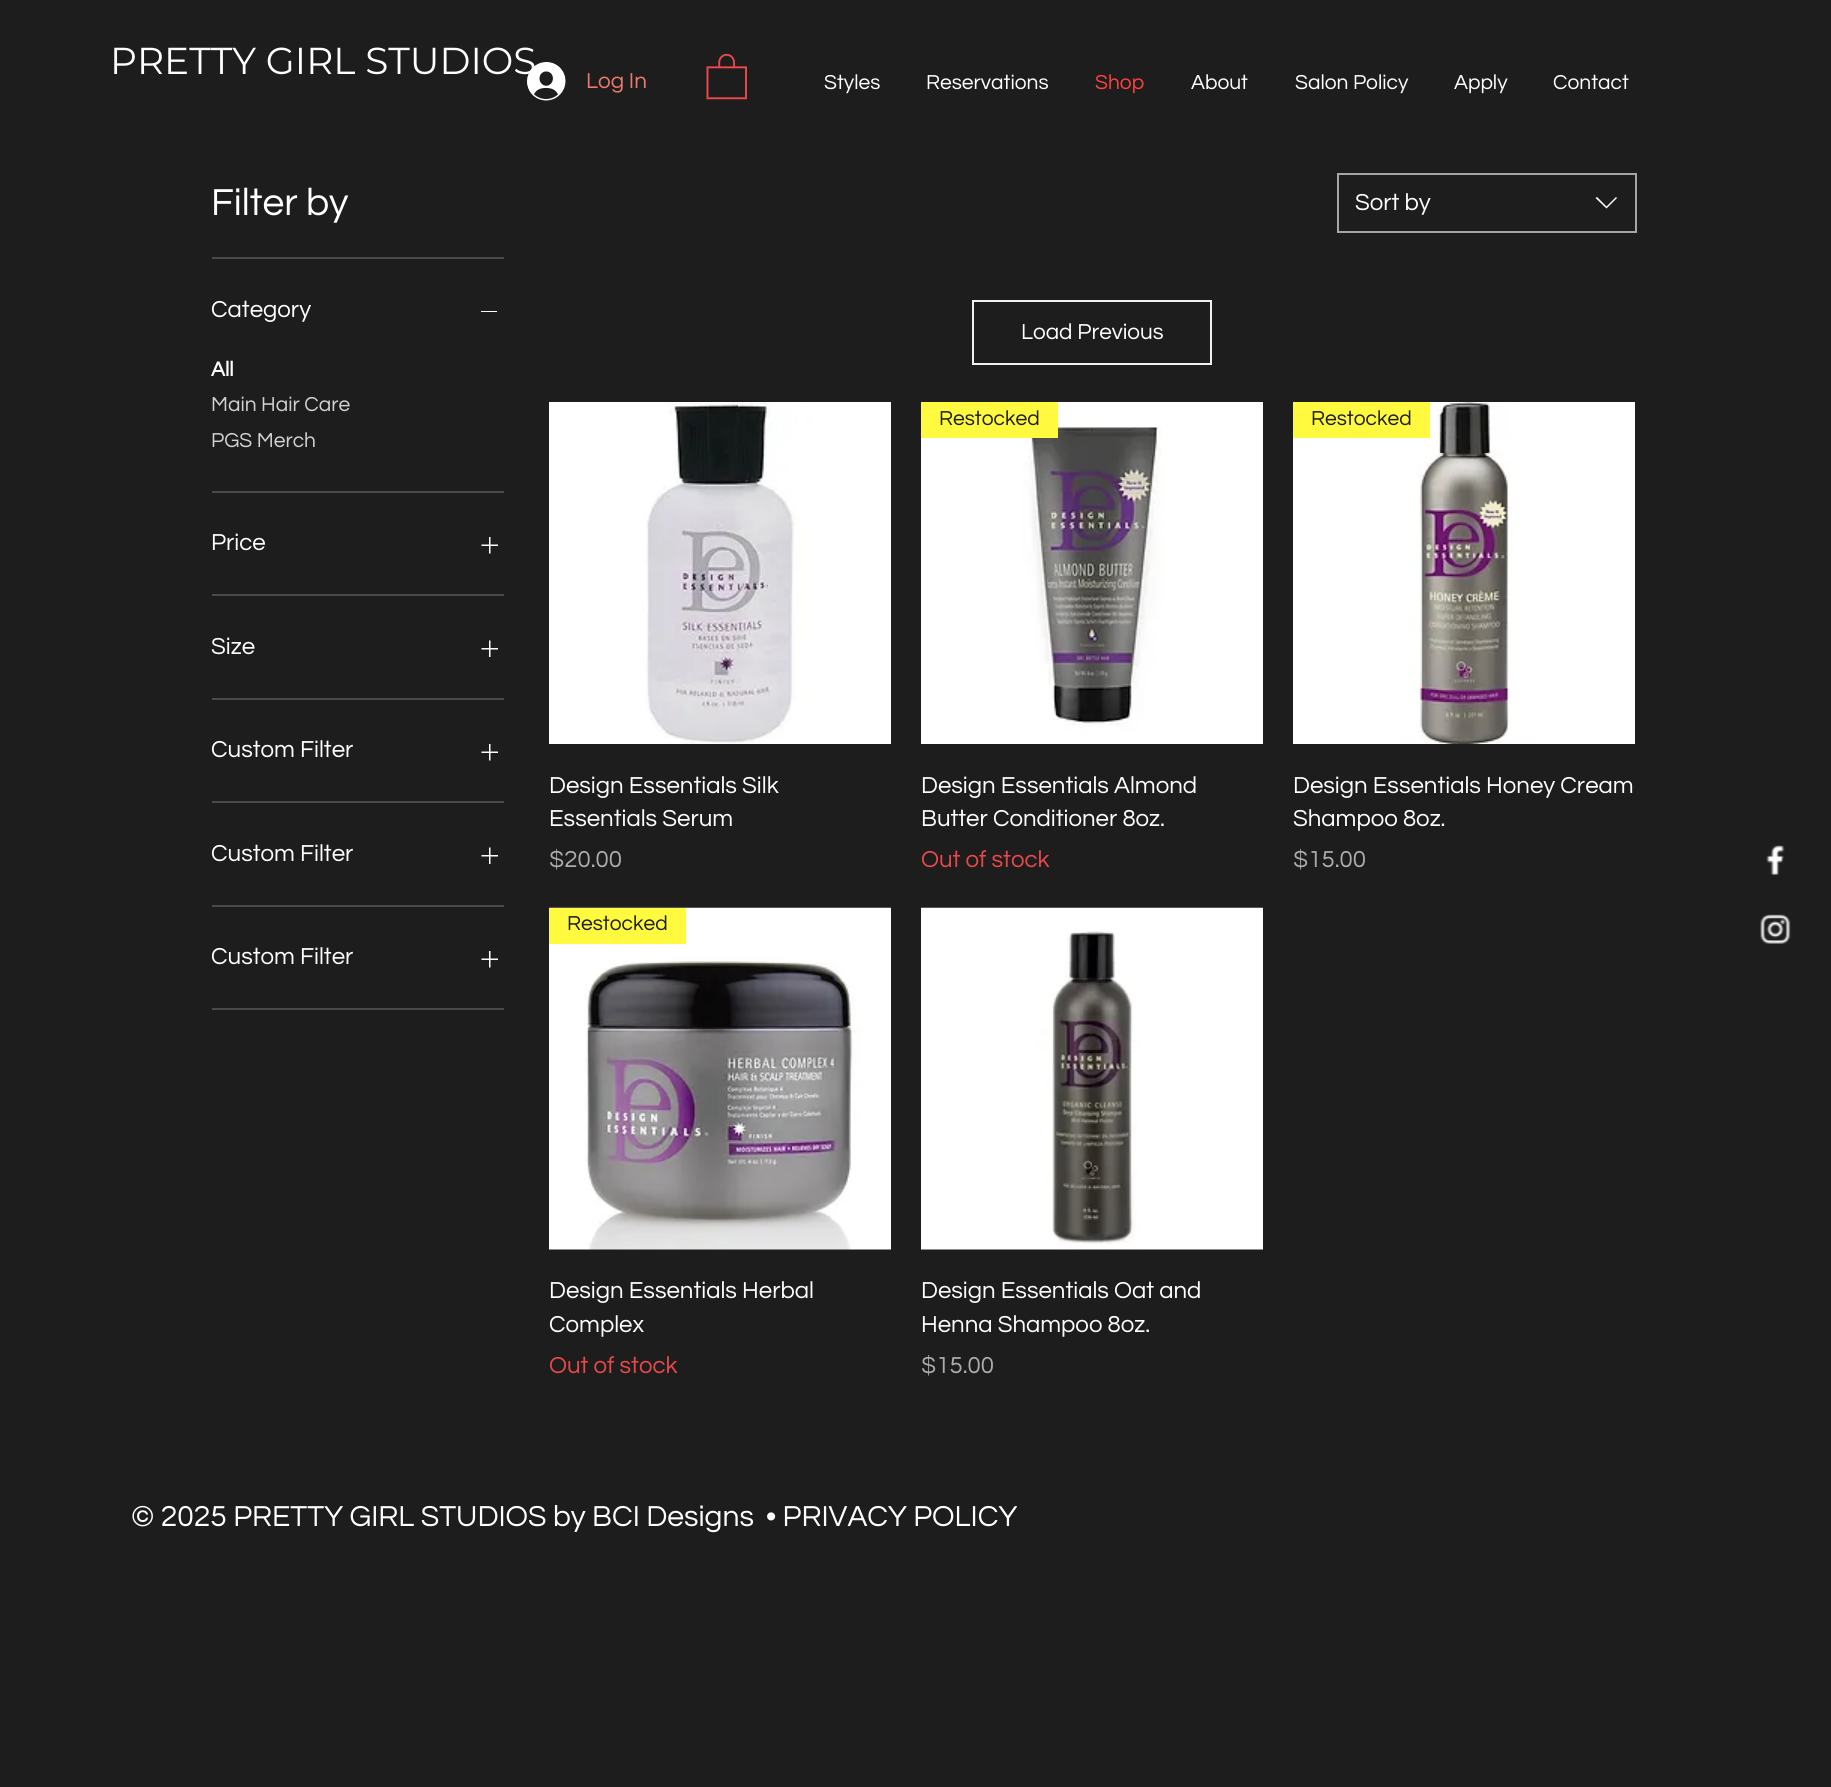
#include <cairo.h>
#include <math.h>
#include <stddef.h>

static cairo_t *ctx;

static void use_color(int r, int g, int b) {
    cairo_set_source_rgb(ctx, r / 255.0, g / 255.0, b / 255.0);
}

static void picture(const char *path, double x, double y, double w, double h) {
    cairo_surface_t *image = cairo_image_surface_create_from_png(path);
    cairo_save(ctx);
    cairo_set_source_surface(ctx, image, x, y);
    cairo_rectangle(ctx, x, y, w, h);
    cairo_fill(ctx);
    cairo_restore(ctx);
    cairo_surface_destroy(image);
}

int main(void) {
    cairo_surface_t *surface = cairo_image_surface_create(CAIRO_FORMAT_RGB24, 1831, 1787);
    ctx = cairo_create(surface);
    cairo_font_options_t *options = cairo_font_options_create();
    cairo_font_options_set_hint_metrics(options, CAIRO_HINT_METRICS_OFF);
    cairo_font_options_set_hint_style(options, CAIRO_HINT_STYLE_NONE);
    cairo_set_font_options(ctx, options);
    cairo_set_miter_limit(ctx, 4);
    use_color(29, 29, 29);
    cairo_paint(ctx);
    picture("img1.png", 527, 62, 39, 39);
    cairo_select_font_face(ctx, "Montserrat", CAIRO_FONT_SLANT_NORMAL, CAIRO_FONT_WEIGHT_NORMAL);
    cairo_set_font_size(ctx, 37.5);
    use_color(255, 255, 255);
    cairo_move_to(ctx, 110, 74);
    cairo_show_text(ctx, "PRETTY GIRL STUDIOS");
    cairo_select_font_face(ctx, "Questrial", CAIRO_FONT_SLANT_NORMAL, CAIRO_FONT_WEIGHT_NORMAL);
    cairo_set_font_size(ctx, 22.5);
    use_color(236, 121, 105);
    cairo_move_to(ctx, 586, 88);
    cairo_show_text(ctx, "Log In");
    picture("img2.png", 706, 53, 41, 47);
    cairo_set_font_size(ctx, 21);
    use_color(255, 255, 255);
    cairo_move_to(ctx, 824, 89);
    cairo_show_text(ctx, "Styles");
    cairo_move_to(ctx, 926, 89);
    cairo_show_text(ctx, "Reservations");
    use_color(255, 64, 64);
    cairo_move_to(ctx, 1095, 89);
    cairo_show_text(ctx, "Shop");
    use_color(255, 255, 255);
    cairo_move_to(ctx, 1191, 89);
    cairo_show_text(ctx, "About");
    cairo_move_to(ctx, 1295, 89);
    cairo_show_text(ctx, "Salon Policy");
    cairo_move_to(ctx, 1454, 89);
    cairo_show_text(ctx, "Apply");
    cairo_move_to(ctx, 1553, 89);
    cairo_show_text(ctx, "Contact");
    use_color(74, 74, 74);
    cairo_rectangle(ctx, 212, 257, 292, 2);
    cairo_fill(ctx);
    cairo_set_font_size(ctx, 39);
    use_color(255, 255, 255);
    cairo_move_to(ctx, 211, 215);
    cairo_show_text(ctx, "Filter by");
    use_color(74, 74, 74);
    cairo_rectangle(ctx, 212, 491, 292, 2);
    cairo_fill(ctx);
    cairo_save(ctx);
    cairo_rectangle(ctx, 212, 288, 99, 42);
    cairo_clip(ctx);
    cairo_set_font_size(ctx, 24);
    use_color(255, 255, 255);
    cairo_move_to(ctx, 211, 317);
    cairo_show_text(ctx, "Category");
    cairo_restore(ctx);
    use_color(255, 255, 255);
    cairo_rectangle(ctx, 481, 311, 16, 1);
    cairo_fill(ctx);
    cairo_select_font_face(ctx, "Questrial", CAIRO_FONT_SLANT_NORMAL, CAIRO_FONT_WEIGHT_BOLD);
    cairo_set_font_size(ctx, 21);
    cairo_move_to(ctx, 211, 376);
    cairo_show_text(ctx, "All");
    cairo_select_font_face(ctx, "Questrial", CAIRO_FONT_SLANT_NORMAL, CAIRO_FONT_WEIGHT_NORMAL);
    use_color(210, 210, 210);
    cairo_move_to(ctx, 211, 411);
    cairo_show_text(ctx, "Main Hair Care");
    cairo_move_to(ctx, 211, 447);
    cairo_show_text(ctx, "PGS Merch");
    use_color(74, 74, 74);
    cairo_rectangle(ctx, 212, 594, 292, 2);
    cairo_fill(ctx);
    cairo_set_font_size(ctx, 24);
    use_color(255, 255, 255);
    cairo_move_to(ctx, 211, 550);
    cairo_show_text(ctx, "Price");
    picture("img3.png", 481, 537, 17, 17);
    use_color(74, 74, 74);
    cairo_rectangle(ctx, 212, 698, 292, 2);
    cairo_fill(ctx);
    use_color(255, 255, 255);
    cairo_move_to(ctx, 211, 654);
    cairo_show_text(ctx, "Size");
    picture("img4.png", 481, 640, 17, 17);
    use_color(74, 74, 74);
    cairo_rectangle(ctx, 212, 801, 292, 2);
    cairo_fill(ctx);
    cairo_save(ctx);
    cairo_rectangle(ctx, 212, 729, 141, 42);
    cairo_clip(ctx);
    use_color(255, 255, 255);
    cairo_move_to(ctx, 211, 757);
    cairo_show_text(ctx, "Custom Filter");
    cairo_restore(ctx);
    picture("img3.png", 481, 744, 17, 17);
    cairo_rectangle(ctx, 212, 905, 292, 2);
    cairo_fill(ctx);
    cairo_save(ctx);
    cairo_rectangle(ctx, 212, 833, 141, 42);
    cairo_clip(ctx);
    use_color(255, 255, 255);
    cairo_move_to(ctx, 211, 861);
    cairo_show_text(ctx, "Custom Filter");
    cairo_restore(ctx);
    picture("img4.png", 481, 847, 17, 17);
    cairo_rectangle(ctx, 212, 1008, 292, 2);
    cairo_fill(ctx);
    cairo_save(ctx);
    cairo_rectangle(ctx, 212, 936, 141, 42);
    cairo_clip(ctx);
    use_color(255, 255, 255);
    cairo_move_to(ctx, 211, 964);
    cairo_show_text(ctx, "Custom Filter");
    cairo_restore(ctx);
    picture("img3.png", 481, 951, 17, 17);
    cairo_rectangle(ctx, 1338, 174, 298, 58);
    use_color(165, 165, 165);
    cairo_stroke(ctx);
    use_color(255, 255, 255);
    cairo_move_to(ctx, 1355, 210);
    cairo_show_text(ctx, "Sort by");
    cairo_set_fill_rule(ctx, CAIRO_FILL_RULE_EVEN_ODD);
    cairo_new_path(ctx);
    cairo_move_to(ctx, 1616, 197);
    cairo_line_to(ctx, 1617, 198);
    cairo_line_to(ctx, 1606.5, 208.5);
    cairo_line_to(ctx, 1595.5, 198);
    cairo_line_to(ctx, 1597, 197);
    cairo_line_to(ctx, 1606.5, 206.5);
    cairo_close_path(ctx);
    cairo_fill(ctx);
    cairo_rectangle(ctx, 973, 301, 238, 63);
    use_color(239, 239, 244);
    cairo_stroke(ctx);
    cairo_set_font_size(ctx, 22.5);
    use_color(255, 255, 255);
    cairo_move_to(ctx, 1021, 339);
    cairo_show_text(ctx, "Load Previous");
    picture("img5.png", 549, 402, 342, 342);
    cairo_set_font_size(ctx, 24);
    cairo_move_to(ctx, 549, 793);
    cairo_show_text(ctx, "Design Essentials Silk");
    cairo_move_to(ctx, 549, 826);
    cairo_show_text(ctx, "Essentials Serum");
    use_color(173, 173, 173);
    cairo_move_to(ctx, 549, 867);
    cairo_show_text(ctx, "$20.00");
    picture("img6.png", 921, 402, 342, 342);
    use_color(255, 250, 64);
    cairo_rectangle(ctx, 921, 402, 137, 36);
    cairo_fill(ctx);
    cairo_set_font_size(ctx, 21);
    use_color(29, 29, 29);
    cairo_move_to(ctx, 939, 425);
    cairo_show_text(ctx, "Restocked");
    cairo_set_font_size(ctx, 24);
    use_color(255, 255, 255);
    cairo_move_to(ctx, 921, 793);
    cairo_show_text(ctx, "Design Essentials Almond");
    cairo_move_to(ctx, 921, 826);
    cairo_show_text(ctx, "Butter Conditioner 8oz.");
    use_color(234, 71, 75);
    cairo_move_to(ctx, 921, 867);
    cairo_show_text(ctx, "Out of stock");
    picture("img7.png", 1293, 402, 342, 342);
    use_color(255, 250, 64);
    cairo_rectangle(ctx, 1293, 402, 137, 36);
    cairo_fill(ctx);
    cairo_set_font_size(ctx, 21);
    use_color(29, 29, 29);
    cairo_move_to(ctx, 1311, 425);
    cairo_show_text(ctx, "Restocked");
    cairo_set_font_size(ctx, 24);
    use_color(255, 255, 255);
    cairo_move_to(ctx, 1293, 793);
    cairo_show_text(ctx, "Design Essentials Honey Cream");
    cairo_move_to(ctx, 1293, 826);
    cairo_show_text(ctx, "Shampoo 8oz.");
    use_color(173, 173, 173);
    cairo_move_to(ctx, 1293, 867);
    cairo_show_text(ctx, "$15.00");
    picture("img8.png", 549, 907, 342, 343);
    use_color(255, 250, 64);
    cairo_rectangle(ctx, 549, 908, 137, 36);
    cairo_fill(ctx);
    cairo_set_font_size(ctx, 21);
    use_color(29, 29, 29);
    cairo_move_to(ctx, 567, 930);
    cairo_show_text(ctx, "Restocked");
    cairo_set_font_size(ctx, 24);
    use_color(255, 255, 255);
    cairo_move_to(ctx, 549, 1298);
    cairo_show_text(ctx, "Design Essentials Herbal");
    cairo_move_to(ctx, 549, 1332);
    cairo_show_text(ctx, "Complex");
    use_color(234, 71, 75);
    cairo_move_to(ctx, 549, 1373);
    cairo_show_text(ctx, "Out of stock");
    picture("img9.png", 921, 907, 342, 343);
    use_color(255, 255, 255);
    cairo_move_to(ctx, 921, 1298);
    cairo_show_text(ctx, "Design Essentials Oat and");
    cairo_move_to(ctx, 921, 1332);
    cairo_show_text(ctx, "Henna Shampoo 8oz.");
    use_color(173, 173, 173);
    cairo_move_to(ctx, 921, 1373);
    cairo_show_text(ctx, "$15.00");
    picture("img10.png", 1766, 845, 19, 30);
    picture("img11.png", 1760, 914, 31, 30);
    cairo_set_font_size(ctx, 30);
    use_color(255, 255, 255);
    cairo_move_to(ctx, 131, 1526);
    cairo_show_text(ctx, "© 2025 PRETTY GIRL STUDIOS by BCI Designs");
    cairo_move_to(ctx, 766, 1526);
    cairo_show_text(ctx, "• PRIVACY POLICY");
    cairo_surface_write_to_png(surface, "result.png");
    cairo_font_options_destroy(options);
    cairo_destroy(ctx);
    cairo_surface_destroy(surface);
    return 0;
}
